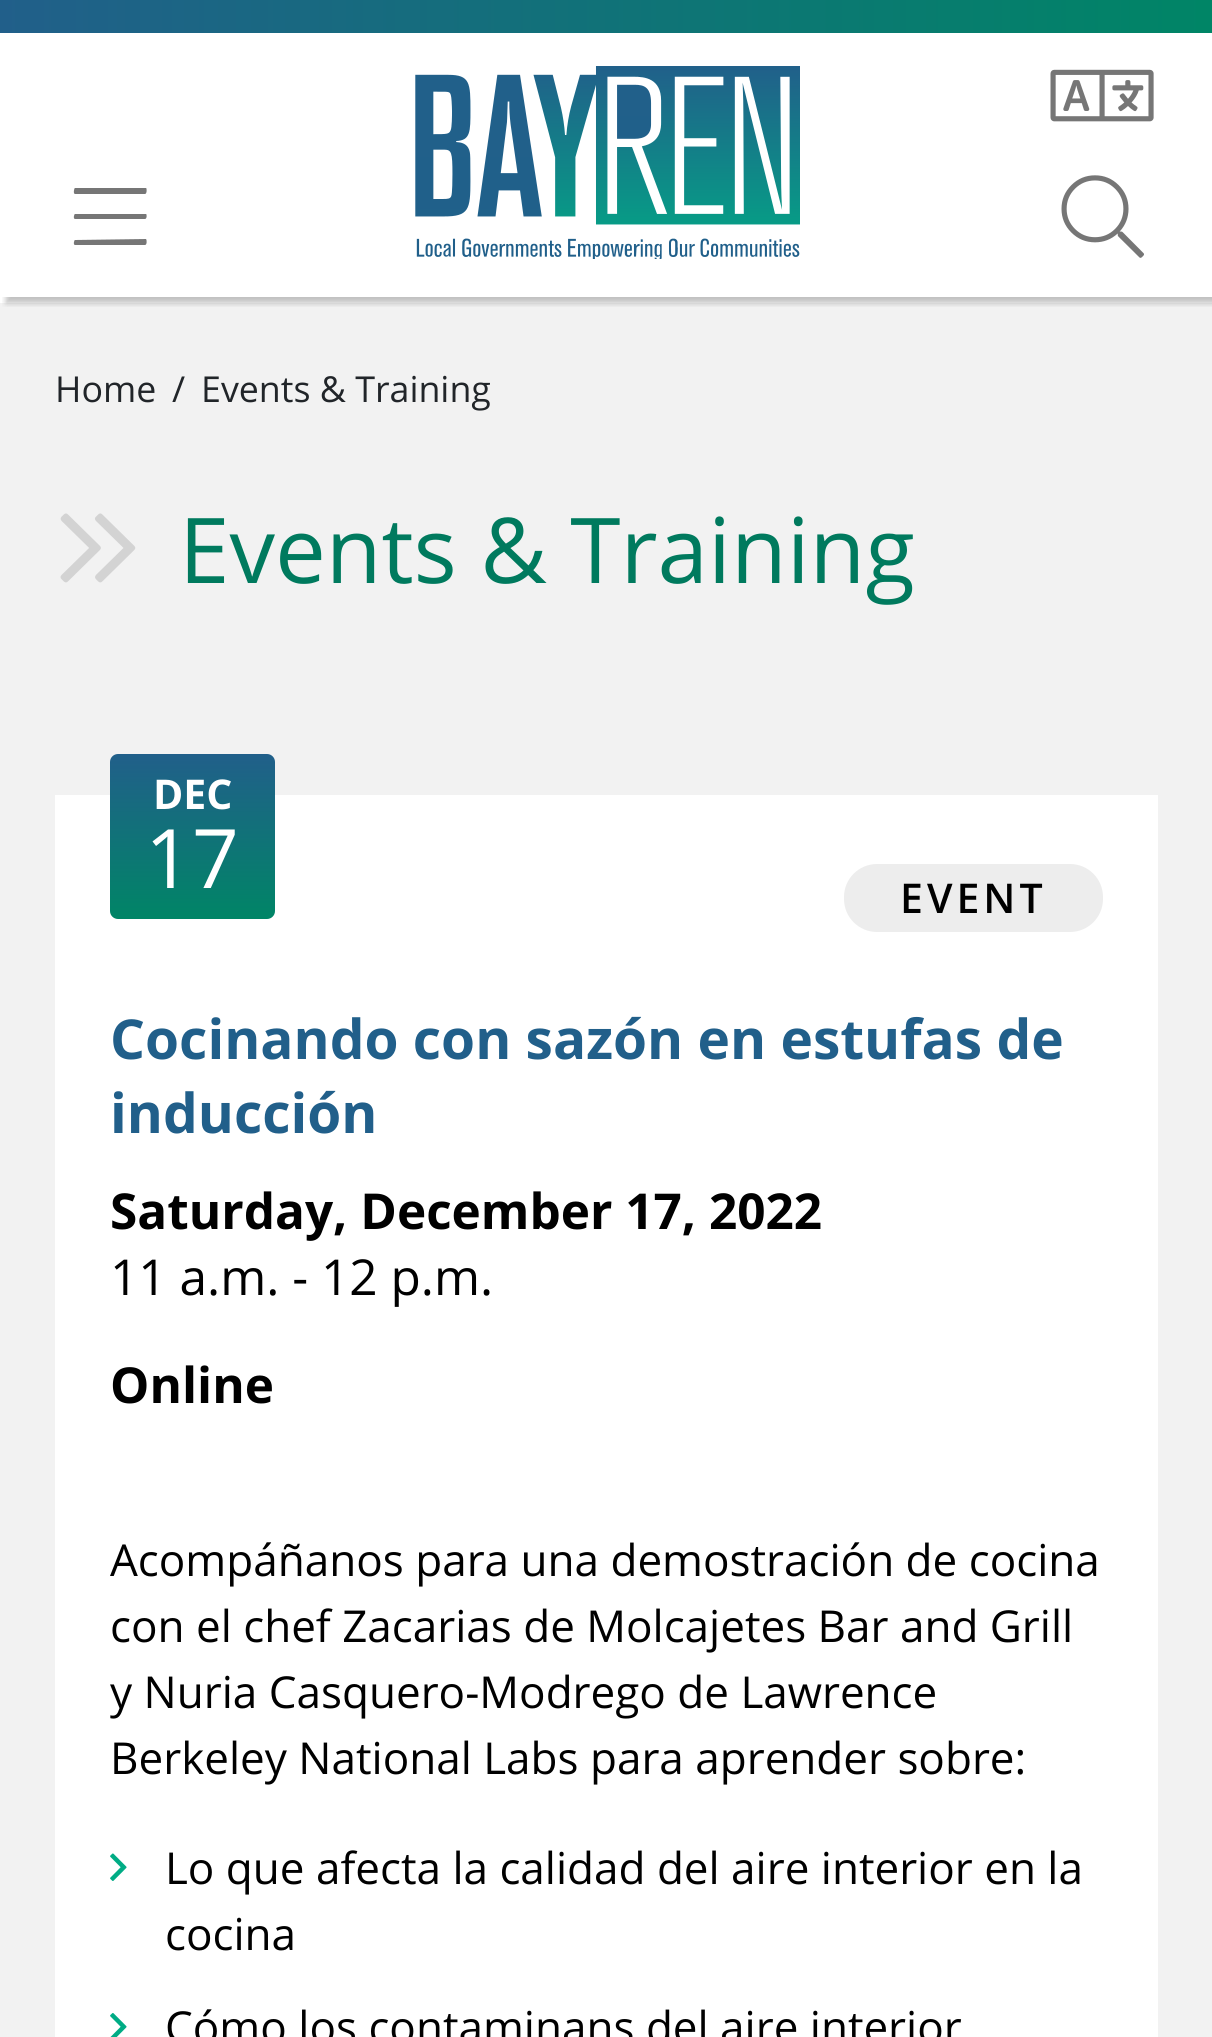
#include <cairo.h>
#include <math.h>
#include <stddef.h>

static cairo_t *ctx;

static void use_color(int r, int g, int b) {
    cairo_set_source_rgb(ctx, r / 255.0, g / 255.0, b / 255.0);
}

static void spaced_text(double x, double y, const char *s, double letter, double word) {
    cairo_move_to(ctx, x, y);
    while (*s) {
        char ch[5] = {0};
        int n = 0;
        do ch[n++] = *s++; while ((*s & 0xC0) == 0x80);
        cairo_show_text(ctx, ch);
        cairo_rel_move_to(ctx, letter + word * (*ch == ' '), 0);
    }
}

static void round_rect(double x, double y, double w, double h, double r) {
    cairo_new_sub_path(ctx);
    cairo_arc(ctx, x + w - r, y + h - r, r, 0, M_PI / 2);
    cairo_arc(ctx, x + r, y + h - r, r, M_PI / 2, M_PI);
    cairo_arc(ctx, x + r, y + r, r, M_PI, 1.5 * M_PI);
    cairo_arc(ctx, x + w - r, y + r, r, 1.5 * M_PI, 2 * M_PI);
    cairo_close_path(ctx);
}

static void shadow(double x, double y, double w, double h, double r, double blur, double alpha) {
    cairo_push_group_with_content(ctx, CAIRO_CONTENT_ALPHA);
    cairo_set_operator(ctx, CAIRO_OPERATOR_SOURCE);
    for (int i = 15; i >= -15 && fmin(w, h) + blur * i / 3 > 0; i -= 2) {
        double e = blur * i / 6;
        cairo_set_source_rgba(ctx, 0, 0, 0, alpha * erfc((i - 1) / 8.5) / 2);
        round_rect(x - e, y - e, w + 2 * e, h + 2 * e, fmax(0, fmin(r + e + blur * .6, fmin(w, h) / 2 + e)));
        cairo_fill(ctx);
    }
    cairo_pattern_t *soft = cairo_pop_group(ctx);
    cairo_mask(ctx, soft);
    cairo_pattern_destroy(soft);
}

static void picture(const char *path, double x, double y, double w, double h) {
    cairo_surface_t *image = cairo_image_surface_create_from_png(path);
    cairo_save(ctx);
    cairo_set_source_surface(ctx, image, x, y);
    cairo_rectangle(ctx, x, y, w, h);
    cairo_fill(ctx);
    cairo_restore(ctx);
    cairo_surface_destroy(image);
}

int main(void) {
    cairo_surface_t *surface = cairo_image_surface_create(CAIRO_FORMAT_RGB24, 1212, 2037);
    ctx = cairo_create(surface);
    cairo_font_options_t *options = cairo_font_options_create();
    cairo_font_options_set_hint_metrics(options, CAIRO_HINT_METRICS_OFF);
    cairo_font_options_set_hint_style(options, CAIRO_HINT_STYLE_NONE);
    cairo_set_font_options(ctx, options);
    cairo_set_miter_limit(ctx, 4);
    cairo_pattern_t *gradient;
    use_color(255, 255, 255);
    cairo_paint(ctx);
    use_color(242, 242, 242);
    cairo_rectangle(ctx, 0, 303, 1212, 1734);
    cairo_fill(ctx);
    cairo_save(ctx);
    cairo_rectangle(ctx, 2, 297, 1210, 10);
    cairo_clip(ctx);
    use_color(0, 0, 0);
    shadow(6, 33, 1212, 270, 0, 3, 0.25);
    cairo_restore(ctx);
    gradient = cairo_pattern_create_linear(0, 17, 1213, 16);
    cairo_pattern_add_color_stop_rgba(gradient, 0, 0.129, 0.373, 0.541, 1);
    cairo_pattern_add_color_stop_rgba(gradient, 1, 0, 0.522, 0.4, 1);
    cairo_set_source(ctx, gradient);
    cairo_pattern_destroy(gradient);
    cairo_rectangle(ctx, 0, 0, 1212, 33);
    cairo_fill(ctx);
    picture("img1.png", 1050, 69, 104, 53);
    use_color(118, 118, 118);
    cairo_new_path(ctx);
    cairo_move_to(ctx, 145, 194);
    cairo_line_to(ctx, 75, 194);
    cairo_curve_to(ctx, 73, 194, 74, 188, 75, 188);
    cairo_line_to(ctx, 146, 188);
    cairo_curve_to(ctx, 147, 188, 147, 194, 145, 194);
    cairo_close_path(ctx);
    cairo_move_to(ctx, 145, 219);
    cairo_line_to(ctx, 75, 219);
    cairo_curve_to(ctx, 73, 219, 74, 214, 75, 214);
    cairo_line_to(ctx, 146, 214);
    cairo_curve_to(ctx, 147, 214, 147, 219, 145, 219);
    cairo_close_path(ctx);
    cairo_move_to(ctx, 145, 245);
    cairo_line_to(ctx, 75, 245);
    cairo_curve_to(ctx, 73, 245, 74, 240, 75, 240);
    cairo_line_to(ctx, 146, 239);
    cairo_curve_to(ctx, 147, 240, 147, 245, 145, 245);
    cairo_close_path(ctx);
    cairo_fill(ctx);
    picture("img2.png", 1061, 175, 83, 83);
    picture("img3.png", 415, 66, 385, 193);
    cairo_select_font_face(ctx, "Open Sans", CAIRO_FONT_SLANT_NORMAL, CAIRO_FONT_WEIGHT_NORMAL);
    cairo_set_font_size(ctx, 35.75);
    use_color(33, 37, 41);
    cairo_move_to(ctx, 55, 402);
    cairo_show_text(ctx, "Home");
    cairo_move_to(ctx, 172, 402);
    cairo_show_text(ctx, "/");
    cairo_move_to(ctx, 201, 402);
    cairo_show_text(ctx, "Events & Training");
    picture("img4.png", 60, 513, 76, 70);
    cairo_set_font_size(ctx, 90.75);
    use_color(0, 122, 94);
    cairo_move_to(ctx, 179, 583);
    cairo_show_text(ctx, "Events & Training");
    use_color(255, 255, 255);
    cairo_rectangle(ctx, 55, 795, 1103, 1242);
    cairo_fill(ctx);
    gradient = cairo_pattern_create_linear(193, 754, 193, 919);
    cairo_pattern_add_color_stop_rgba(gradient, 0, 0.129, 0.373, 0.541, 1);
    cairo_pattern_add_color_stop_rgba(gradient, 1, 0, 0.522, 0.4, 1);
    cairo_set_source(ctx, gradient);
    cairo_pattern_destroy(gradient);
    round_rect(110, 754, 165, 165, 8);
    cairo_fill(ctx);
    cairo_select_font_face(ctx, "Open Sans", CAIRO_FONT_SLANT_NORMAL, CAIRO_FONT_WEIGHT_BOLD);
    cairo_set_font_size(ctx, 41);
    use_color(255, 255, 255);
    cairo_move_to(ctx, 153, 809);
    cairo_show_text(ctx, "DEC");
    cairo_select_font_face(ctx, "Open Sans", CAIRO_FONT_SLANT_NORMAL, CAIRO_FONT_WEIGHT_NORMAL);
    cairo_set_font_size(ctx, 82);
    cairo_move_to(ctx, 145, 888);
    cairo_show_text(ctx, "17");
    use_color(237, 237, 237);
    round_rect(844, 864, 259, 68, 33);
    cairo_fill(ctx);
    cairo_select_font_face(ctx, "Open Sans SemiBold", CAIRO_FONT_SLANT_NORMAL, CAIRO_FONT_WEIGHT_NORMAL);
    cairo_set_font_size(ctx, 41);
    use_color(0, 0, 0);
    spaced_text(900, 913, "EVENT", 4, 0);
    cairo_select_font_face(ctx, "Open Sans", CAIRO_FONT_SLANT_NORMAL, CAIRO_FONT_WEIGHT_BOLD);
    cairo_set_font_size(ctx, 55);
    use_color(33, 95, 138);
    cairo_move_to(ctx, 110, 1059);
    cairo_show_text(ctx, "Cocinando con sazón en estufas de");
    cairo_move_to(ctx, 110, 1133);
    cairo_show_text(ctx, "inducción");
    cairo_set_font_size(ctx, 49.5);
    use_color(0, 0, 0);
    cairo_move_to(ctx, 110, 1229);
    cairo_show_text(ctx, "Saturday, December 17, 2022");
    cairo_select_font_face(ctx, "Open Sans", CAIRO_FONT_SLANT_NORMAL, CAIRO_FONT_WEIGHT_NORMAL);
    cairo_move_to(ctx, 110, 1295);
    cairo_show_text(ctx, "11 a.m. - 12 p.m.");
    cairo_select_font_face(ctx, "Open Sans", CAIRO_FONT_SLANT_NORMAL, CAIRO_FONT_WEIGHT_BOLD);
    cairo_move_to(ctx, 110, 1403);
    cairo_show_text(ctx, "Online");
    cairo_select_font_face(ctx, "Open Sans", CAIRO_FONT_SLANT_NORMAL, CAIRO_FONT_WEIGHT_NORMAL);
    cairo_set_font_size(ctx, 44);
    cairo_move_to(ctx, 110, 1576);
    cairo_show_text(ctx, "Acompáñanos para una demostración de cocina");
    cairo_move_to(ctx, 110, 1642);
    cairo_show_text(ctx, "con el chef Zacarias de Molcajetes Bar and Grill");
    cairo_move_to(ctx, 110, 1708);
    cairo_show_text(ctx, "y Nuria Casquero-Modrego de Lawrence");
    cairo_move_to(ctx, 110, 1774);
    cairo_show_text(ctx, "Berkeley National Labs para aprender sobre:");
    picture("img5.png", 110, 1853, 17, 28);
    cairo_move_to(ctx, 165, 1884);
    cairo_show_text(ctx, "Lo que afecta la calidad del aire interior en la");
    cairo_move_to(ctx, 165, 1950);
    cairo_show_text(ctx, "cocina");
    picture("img6.png", 110, 2013, 17, 24);
    cairo_move_to(ctx, 165, 2043);
    cairo_show_text(ctx, "Cómo los contaminans del aire interior");
    cairo_surface_write_to_png(surface, "result.png");
    cairo_font_options_destroy(options);
    cairo_destroy(ctx);
    cairo_surface_destroy(surface);
    return 0;
}
